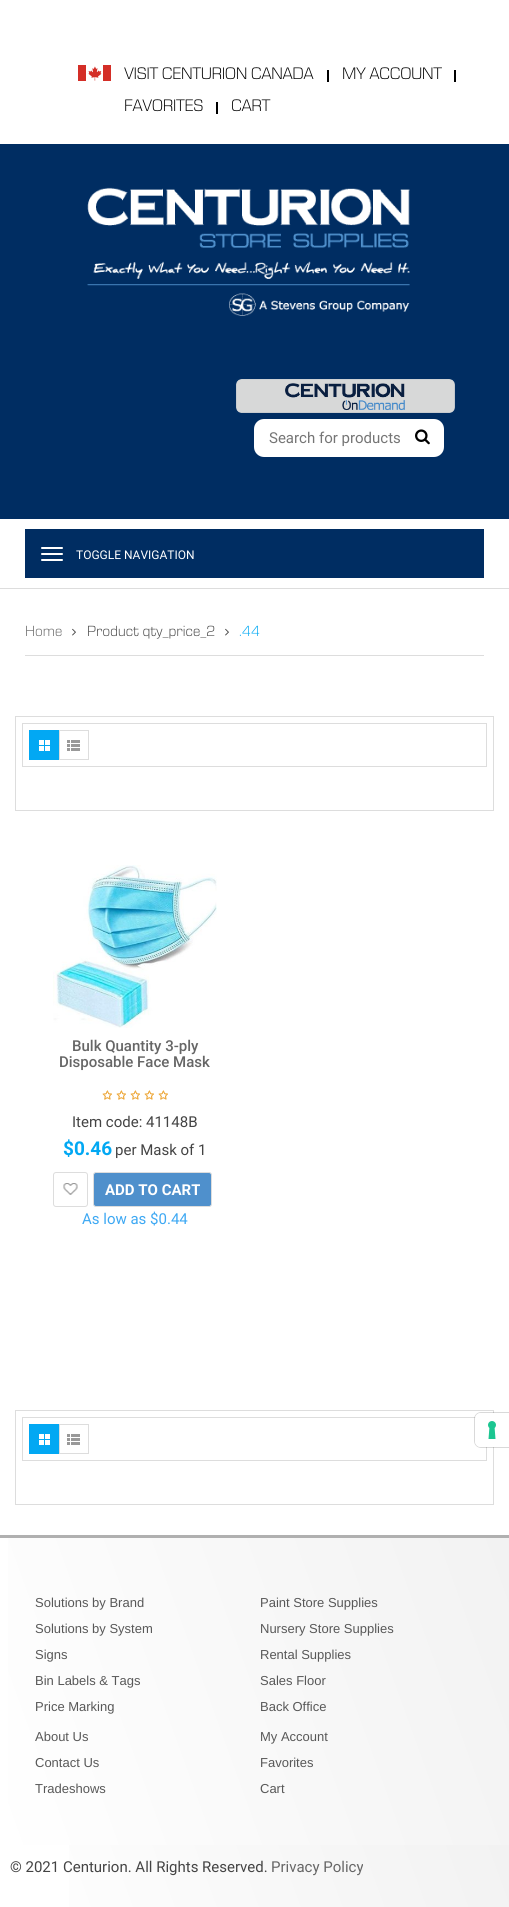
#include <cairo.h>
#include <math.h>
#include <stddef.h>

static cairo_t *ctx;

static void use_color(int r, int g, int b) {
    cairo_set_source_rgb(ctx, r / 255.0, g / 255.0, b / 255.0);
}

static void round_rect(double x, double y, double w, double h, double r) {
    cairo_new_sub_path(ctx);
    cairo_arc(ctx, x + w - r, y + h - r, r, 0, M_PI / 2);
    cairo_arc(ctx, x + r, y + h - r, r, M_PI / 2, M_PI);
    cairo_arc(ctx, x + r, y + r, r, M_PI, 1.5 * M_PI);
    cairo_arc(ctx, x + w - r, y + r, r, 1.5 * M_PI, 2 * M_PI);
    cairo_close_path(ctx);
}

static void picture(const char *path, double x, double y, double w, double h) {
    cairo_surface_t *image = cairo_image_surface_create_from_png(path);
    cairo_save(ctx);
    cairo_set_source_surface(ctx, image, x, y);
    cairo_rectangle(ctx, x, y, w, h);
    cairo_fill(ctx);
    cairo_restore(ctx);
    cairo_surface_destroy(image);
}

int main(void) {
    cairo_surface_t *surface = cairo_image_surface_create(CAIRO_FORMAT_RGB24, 509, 1907);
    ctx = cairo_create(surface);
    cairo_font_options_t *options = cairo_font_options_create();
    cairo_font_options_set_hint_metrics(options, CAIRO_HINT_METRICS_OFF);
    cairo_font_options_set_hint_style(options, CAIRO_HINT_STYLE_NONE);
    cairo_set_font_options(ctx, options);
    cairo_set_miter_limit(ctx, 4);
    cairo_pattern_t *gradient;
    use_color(255, 255, 255);
    cairo_paint(ctx);
    picture("img1.png", 78, 65, 33, 16);
    picture("img2.png", 124, 67, 190, 13);
    use_color(0, 0, 0);
    cairo_rectangle(ctx, 327, 70, 2, 12);
    cairo_fill(ctx);
    picture("img3.png", 343, 67, 99, 13);
    cairo_rectangle(ctx, 454, 70, 2, 12);
    cairo_fill(ctx);
    picture("img4.png", 125, 99, 78, 13);
    cairo_rectangle(ctx, 216, 102, 2, 12);
    cairo_fill(ctx);
    picture("img5.png", 231, 99, 40, 13);
    use_color(0, 45, 98);
    cairo_rectangle(ctx, 0, 144, 509, 375);
    cairo_fill(ctx);
    picture("img6.png", 87, 187, 323, 129);
    picture("img7.png", 236, 379, 219, 34);
    use_color(255, 255, 255);
    round_rect(254, 419, 190, 38, 10);
    cairo_fill(ctx);
    cairo_select_font_face(ctx, "Roboto", CAIRO_FONT_SLANT_NORMAL, CAIRO_FONT_WEIGHT_NORMAL);
    cairo_set_font_size(ctx, 15);
    use_color(117, 117, 117);
    cairo_move_to(ctx, 269, 443);
    cairo_show_text(ctx, "Search for products");
    picture("img8.png", 415, 429, 15, 16);
    use_color(221, 221, 221);
    cairo_rectangle(ctx, 0, 588, 509, 1);
    cairo_fill(ctx);
    use_color(0, 45, 98);
    cairo_rectangle(ctx, 25, 529, 459, 49);
    cairo_fill(ctx);
    use_color(255, 255, 255);
    round_rect(41, 547, 22, 2, 1);
    cairo_fill(ctx);
    round_rect(41, 553, 22, 2, 1);
    cairo_fill(ctx);
    cairo_set_font_size(ctx, 12);
    cairo_move_to(ctx, 76, 559);
    cairo_show_text(ctx, "TOGGLE NAVIGATION");
    round_rect(41, 559, 22, 2, 1);
    cairo_fill(ctx);
    use_color(221, 221, 221);
    cairo_rectangle(ctx, 25, 655, 459, 1);
    cairo_fill(ctx);
    picture("img9.png", 26, 625, 36, 12);
    picture("img10.png", 72, 628, 4, 8);
    picture("img11.png", 88, 625, 127, 14);
    picture("img10.png", 225, 628, 4, 8);
    picture("img12.png", 239, 625, 21, 11);
    cairo_rectangle(ctx, 15.5, 716.5, 478, 94);
    cairo_set_line_width(ctx, 1);
    cairo_stroke(ctx);
    cairo_rectangle(ctx, 22.5, 723.5, 464, 43);
    cairo_stroke(ctx);
    use_color(2, 168, 243);
    cairo_rectangle(ctx, 29, 730, 30, 30);
    cairo_fill(ctx);
    picture("img13.png", 39, 740, 11, 11);
    picture("img14.png", 67, 740, 13, 11);
    cairo_rectangle(ctx, 59.5, 730.5, 29, 29);
    use_color(221, 221, 221);
    cairo_stroke(ctx);
    picture("img15.png", 53, 865, 164, 163);
    cairo_select_font_face(ctx, "Roboto Medium", CAIRO_FONT_SLANT_NORMAL, CAIRO_FONT_WEIGHT_NORMAL);
    cairo_set_font_size(ctx, 15);
    use_color(102, 102, 102);
    cairo_move_to(ctx, 72, 1051);
    cairo_show_text(ctx, "Bulk Quantity 3-ply");
    cairo_move_to(ctx, 59, 1067);
    cairo_show_text(ctx, "Disposable Face Mask");
    picture("img16.png", 102, 1090, 66, 10);
    cairo_select_font_face(ctx, "Roboto", CAIRO_FONT_SLANT_NORMAL, CAIRO_FONT_WEIGHT_NORMAL);
    use_color(68, 68, 68);
    cairo_move_to(ctx, 72, 1127);
    cairo_show_text(ctx, "Item code: 41148B");
    cairo_select_font_face(ctx, "Roboto", CAIRO_FONT_SLANT_NORMAL, CAIRO_FONT_WEIGHT_BOLD);
    cairo_set_font_size(ctx, 19);
    use_color(2, 168, 243);
    cairo_move_to(ctx, 63, 1155);
    cairo_show_text(ctx, "$0.46");
    cairo_select_font_face(ctx, "Roboto", CAIRO_FONT_SLANT_NORMAL, CAIRO_FONT_WEIGHT_NORMAL);
    cairo_set_font_size(ctx, 15);
    use_color(68, 68, 68);
    cairo_move_to(ctx, 115, 1155);
    cairo_show_text(ctx, "per Mask of 1");
    picture("img17.png", 63, 1183, 15, 12);
    round_rect(53.5, 1172.5, 34, 34, 2.5);
    use_color(221, 221, 221);
    cairo_stroke(ctx);
    use_color(79, 144, 204);
    round_rect(93.5, 1172.5, 118, 34, 2.5);
    cairo_fill_preserve(ctx);
    use_color(221, 221, 221);
    cairo_stroke(ctx);
    cairo_select_font_face(ctx, "Roboto", CAIRO_FONT_SLANT_NORMAL, CAIRO_FONT_WEIGHT_BOLD);
    use_color(255, 255, 255);
    cairo_move_to(ctx, 105, 1195);
    cairo_show_text(ctx, "ADD TO CART");
    cairo_select_font_face(ctx, "Roboto", CAIRO_FONT_SLANT_NORMAL, CAIRO_FONT_WEIGHT_NORMAL);
    use_color(61, 168, 243);
    cairo_move_to(ctx, 82, 1224);
    cairo_show_text(ctx, "As low as $0.44");
    cairo_rectangle(ctx, 15.5, 1410.5, 478, 94);
    use_color(221, 221, 221);
    cairo_stroke(ctx);
    cairo_rectangle(ctx, 22.5, 1417.5, 464, 43);
    cairo_stroke(ctx);
    use_color(2, 168, 243);
    cairo_rectangle(ctx, 29, 1424, 30, 30);
    cairo_fill(ctx);
    picture("img13.png", 39, 1434, 11, 11);
    picture("img14.png", 67, 1434, 13, 11);
    cairo_rectangle(ctx, 59.5, 1424.5, 29, 29);
    use_color(221, 221, 221);
    cairo_stroke(ctx);
    cairo_new_path(ctx);
    cairo_move_to(ctx, 481, 1412.5);
    cairo_line_to(ctx, 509.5, 1412.5);
    cairo_line_to(ctx, 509.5, 1447.5);
    cairo_line_to(ctx, 481, 1447.5);
    cairo_curve_to(ctx, 477.5, 1447.5, 474.5, 1444.5, 474.5, 1441);
    cairo_line_to(ctx, 474.5, 1419);
    cairo_curve_to(ctx, 474.5, 1415.5, 477.5, 1412.5, 481, 1412.5);
    cairo_close_path(ctx);
    cairo_set_source_rgba(ctx, 0, 0, 0, 0.15);
    cairo_stroke(ctx);
    use_color(255, 255, 255);
    cairo_new_path(ctx);
    cairo_move_to(ctx, 481, 1413);
    cairo_line_to(ctx, 509, 1413);
    cairo_line_to(ctx, 509, 1447);
    cairo_line_to(ctx, 481, 1447);
    cairo_curve_to(ctx, 477.5, 1447, 475, 1444.5, 475, 1441);
    cairo_line_to(ctx, 475, 1419);
    cairo_curve_to(ctx, 475, 1415.5, 477.5, 1413, 481, 1413);
    cairo_close_path(ctx);
    cairo_fill(ctx);
    picture("img18.png", 488, 1421, 8, 18);
    gradient = cairo_pattern_create_linear(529, 1592, -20, 1791);
    cairo_pattern_add_color_stop_rgba(gradient, 0, 0.949, 0.949, 0.949, 1);
    cairo_pattern_add_color_stop_rgba(gradient, 1, 1, 1, 1, 1);
    cairo_set_source(ctx, gradient);
    cairo_pattern_destroy(gradient);
    cairo_rectangle(ctx, 8, 1538, 501, 307);
    cairo_fill(ctx);
    use_color(176, 176, 176);
    cairo_rectangle(ctx, 0, 1535, 509, 3);
    cairo_fill(ctx);
    cairo_select_font_face(ctx, "Liberation Sans", CAIRO_FONT_SLANT_NORMAL, CAIRO_FONT_WEIGHT_NORMAL);
    cairo_set_font_size(ctx, 13);
    use_color(88, 88, 88);
    cairo_move_to(ctx, 35, 1607);
    cairo_show_text(ctx, "Solutions by Brand");
    cairo_move_to(ctx, 35, 1633);
    cairo_show_text(ctx, "Solutions by System");
    cairo_move_to(ctx, 35, 1659);
    cairo_show_text(ctx, "Signs");
    cairo_move_to(ctx, 35, 1685);
    cairo_show_text(ctx, "Bin Labels & Tags");
    cairo_move_to(ctx, 35, 1711);
    cairo_show_text(ctx, "Price Marking");
    cairo_move_to(ctx, 260, 1607);
    cairo_show_text(ctx, "Paint Store Supplies");
    cairo_move_to(ctx, 260, 1633);
    cairo_show_text(ctx, "Nursery Store Supplies");
    cairo_move_to(ctx, 260, 1659);
    cairo_show_text(ctx, "Rental Supplies");
    cairo_move_to(ctx, 260, 1685);
    cairo_show_text(ctx, "Sales Floor");
    cairo_move_to(ctx, 260, 1711);
    cairo_show_text(ctx, "Back Office");
    cairo_move_to(ctx, 35, 1741);
    cairo_show_text(ctx, "About Us");
    cairo_move_to(ctx, 35, 1767);
    cairo_show_text(ctx, "Contact Us");
    cairo_move_to(ctx, 35, 1793);
    cairo_show_text(ctx, "Tradeshows");
    cairo_move_to(ctx, 260, 1741);
    cairo_show_text(ctx, "My Account");
    cairo_move_to(ctx, 260, 1767);
    cairo_show_text(ctx, "Favorites");
    cairo_move_to(ctx, 260, 1793);
    cairo_show_text(ctx, "Cart");
    gradient = cairo_pattern_create_linear(495, 1807, 14, 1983);
    cairo_pattern_add_color_stop_rgba(gradient, 0, 0.949, 0.949, 0.949, 1);
    cairo_pattern_add_color_stop_rgba(gradient, 1, 1, 1, 1, 1);
    cairo_set_source(ctx, gradient);
    cairo_pattern_destroy(gradient);
    cairo_rectangle(ctx, 69, 1845, 440, 62);
    cairo_fill(ctx);
    cairo_select_font_face(ctx, "Roboto", CAIRO_FONT_SLANT_NORMAL, CAIRO_FONT_WEIGHT_NORMAL);
    cairo_set_font_size(ctx, 15);
    use_color(68, 68, 68);
    cairo_move_to(ctx, 10, 1872);
    cairo_show_text(ctx, "© 2021 Centurion. All Rights Reserved.");
    use_color(102, 102, 102);
    cairo_move_to(ctx, 271, 1872);
    cairo_show_text(ctx, "Privacy Policy");
    cairo_surface_write_to_png(surface, "result.png");
    cairo_font_options_destroy(options);
    cairo_destroy(ctx);
    cairo_surface_destroy(surface);
    return 0;
}
